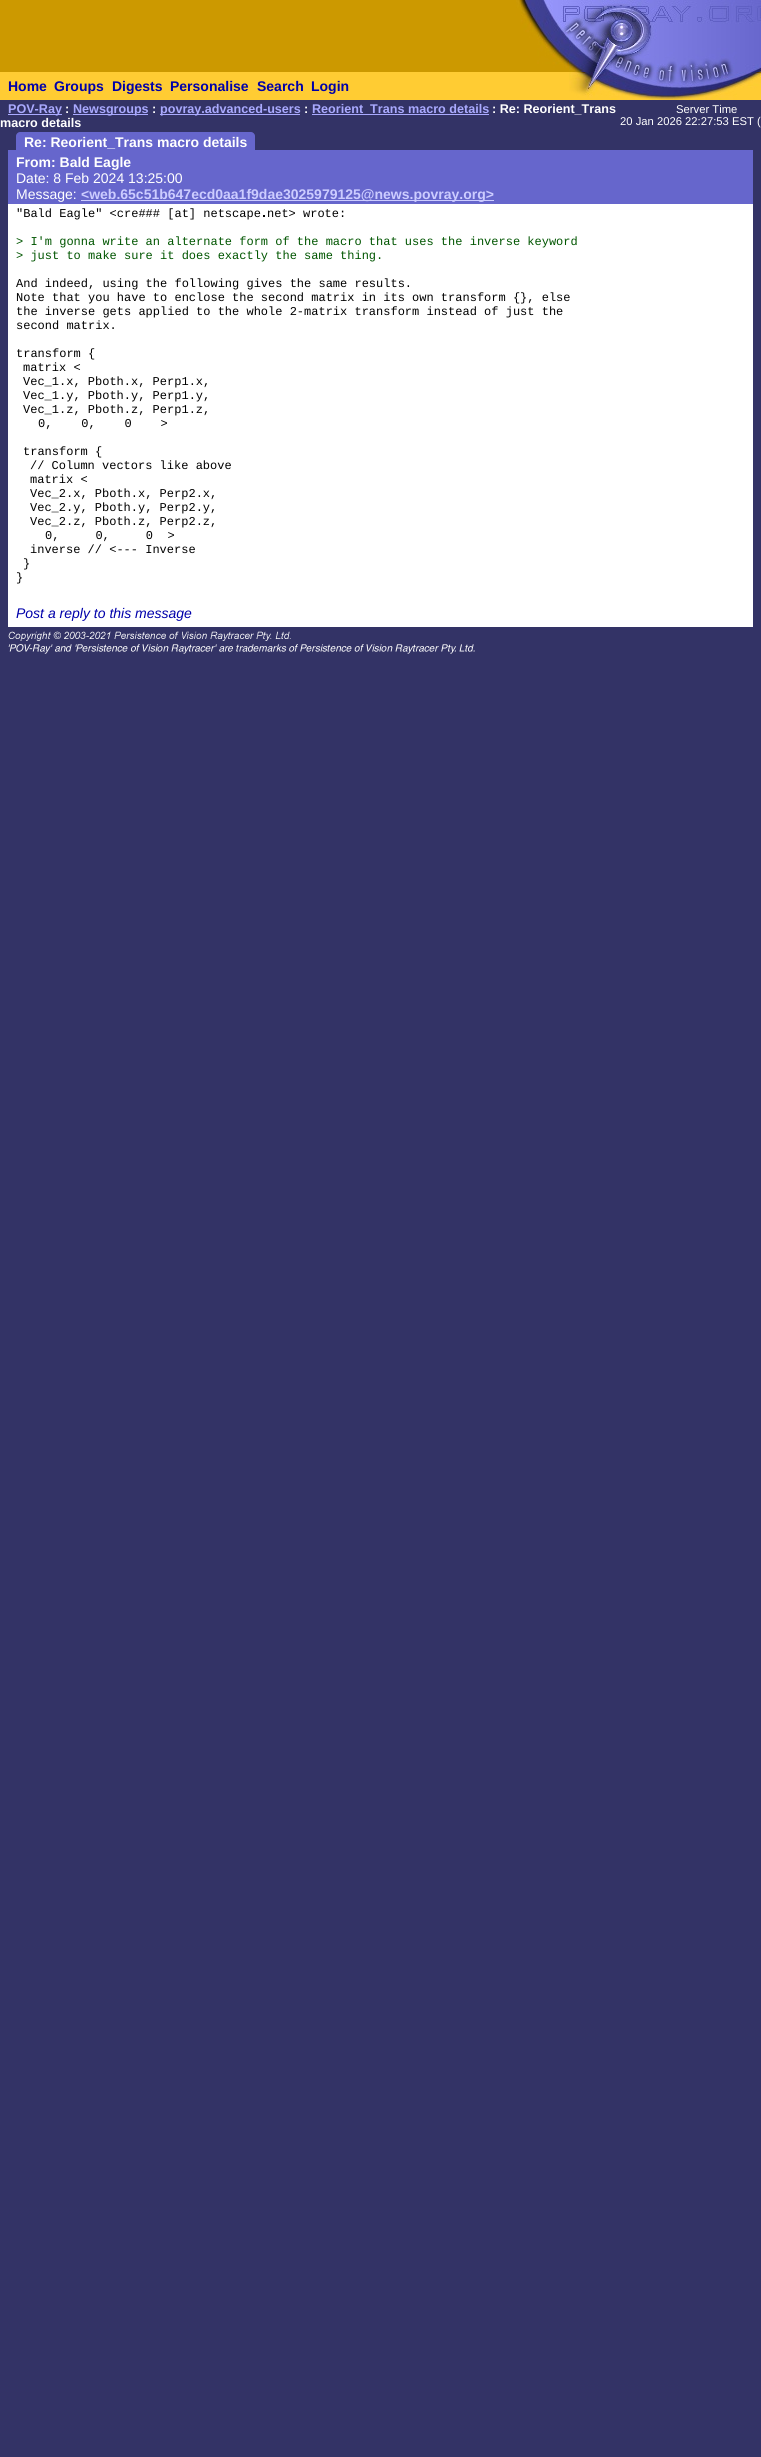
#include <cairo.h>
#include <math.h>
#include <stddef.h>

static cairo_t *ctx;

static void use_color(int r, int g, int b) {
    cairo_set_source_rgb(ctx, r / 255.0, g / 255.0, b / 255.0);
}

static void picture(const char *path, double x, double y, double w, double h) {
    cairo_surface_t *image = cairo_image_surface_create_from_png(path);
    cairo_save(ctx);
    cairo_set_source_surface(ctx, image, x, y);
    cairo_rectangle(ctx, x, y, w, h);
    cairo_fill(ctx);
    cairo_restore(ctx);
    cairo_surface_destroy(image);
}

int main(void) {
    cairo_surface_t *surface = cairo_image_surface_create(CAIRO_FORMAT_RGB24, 761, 2457);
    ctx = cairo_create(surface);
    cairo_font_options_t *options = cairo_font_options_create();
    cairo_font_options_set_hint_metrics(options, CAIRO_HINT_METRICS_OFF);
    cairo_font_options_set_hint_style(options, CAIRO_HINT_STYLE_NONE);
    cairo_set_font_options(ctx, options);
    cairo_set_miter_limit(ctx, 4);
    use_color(51, 51, 102);
    cairo_paint(ctx);
    use_color(204, 153, 0);
    cairo_rectangle(ctx, 0, 0, 569, 72);
    cairo_fill(ctx);
    picture("img1.png", 516, 0, 53, 68);
    picture("img2.png", 569, 0, 40, 72);
    picture("img3.png", 609, 0, 152, 72);
    use_color(255, 204, 51);
    cairo_rectangle(ctx, 0, 72, 569, 28);
    cairo_fill(ctx);
    cairo_select_font_face(ctx, "Liberation Sans", CAIRO_FONT_SLANT_NORMAL, CAIRO_FONT_WEIGHT_BOLD);
    cairo_set_font_size(ctx, 14);
    use_color(0, 0, 170);
    cairo_move_to(ctx, 8, 91);
    cairo_show_text(ctx, "Home");
    cairo_move_to(ctx, 54, 91);
    cairo_show_text(ctx, "Groups");
    cairo_move_to(ctx, 112, 91);
    cairo_show_text(ctx, "Digests");
    cairo_move_to(ctx, 170, 91);
    cairo_show_text(ctx, "Personalise");
    cairo_move_to(ctx, 257, 91);
    cairo_show_text(ctx, "Search");
    cairo_move_to(ctx, 311, 91);
    cairo_show_text(ctx, "Login");
    use_color(255, 204, 51);
    cairo_rectangle(ctx, 569, 98, 40, 2);
    cairo_fill(ctx);
    picture("img4.png", 569, 72, 40, 26);
    picture("img5.png", 609, 72, 152, 28);
    use_color(170, 170, 255);
    cairo_rectangle(ctx, 8, 114, 54, 1);
    cairo_fill(ctx);
    cairo_set_font_size(ctx, 12.6);
    cairo_move_to(ctx, 8, 113);
    cairo_show_text(ctx, "POV-Ray");
    use_color(255, 255, 255);
    cairo_move_to(ctx, 65, 113);
    cairo_show_text(ctx, ":");
    use_color(170, 170, 255);
    cairo_rectangle(ctx, 73, 114, 75, 1);
    cairo_fill(ctx);
    cairo_move_to(ctx, 73, 113);
    cairo_show_text(ctx, "Newsgroups");
    use_color(255, 255, 255);
    cairo_move_to(ctx, 152, 113);
    cairo_show_text(ctx, ":");
    use_color(170, 170, 255);
    cairo_rectangle(ctx, 160, 114, 140, 1);
    cairo_fill(ctx);
    cairo_move_to(ctx, 160, 113);
    cairo_show_text(ctx, "povray.advanced-users");
    use_color(255, 255, 255);
    cairo_move_to(ctx, 304, 113);
    cairo_show_text(ctx, ":");
    use_color(170, 170, 255);
    cairo_rectangle(ctx, 312, 114, 177, 1);
    cairo_fill(ctx);
    cairo_move_to(ctx, 312, 113);
    cairo_show_text(ctx, "Reorient_Trans macro details");
    use_color(255, 255, 255);
    cairo_move_to(ctx, 492, 113);
    cairo_show_text(ctx, ": Re: Reorient_Trans");
    cairo_move_to(ctx, 0, 127);
    cairo_show_text(ctx, "macro details");
    cairo_select_font_face(ctx, "Liberation Sans", CAIRO_FONT_SLANT_NORMAL, CAIRO_FONT_WEIGHT_NORMAL);
    cairo_set_font_size(ctx, 11.25);
    cairo_move_to(ctx, 676, 113);
    cairo_show_text(ctx, "Server Time");
    cairo_move_to(ctx, 620, 125);
    cairo_show_text(ctx, "20 Jan 2026 22:27:53 EST (");
    use_color(102, 102, 204);
    cairo_new_path(ctx);
    cairo_move_to(ctx, 20, 132);
    cairo_line_to(ctx, 251, 132);
    cairo_curve_to(ctx, 253, 132, 255, 134, 255, 136);
    cairo_line_to(ctx, 255, 150);
    cairo_line_to(ctx, 16, 150);
    cairo_line_to(ctx, 16, 136);
    cairo_curve_to(ctx, 16, 134, 18, 132, 20, 132);
    cairo_close_path(ctx);
    cairo_fill(ctx);
    cairo_select_font_face(ctx, "Liberation Sans", CAIRO_FONT_SLANT_NORMAL, CAIRO_FONT_WEIGHT_BOLD);
    cairo_set_font_size(ctx, 14);
    use_color(255, 255, 255);
    cairo_move_to(ctx, 24, 147);
    cairo_show_text(ctx, "Re: Reorient_Trans macro details");
    use_color(102, 102, 204);
    cairo_rectangle(ctx, 8, 150, 745, 4);
    cairo_fill(ctx);
    cairo_rectangle(ctx, 8, 154, 745, 50);
    cairo_fill(ctx);
    use_color(255, 255, 255);
    cairo_move_to(ctx, 16, 167);
    cairo_show_text(ctx, "From: Bald Eagle");
    cairo_select_font_face(ctx, "Liberation Sans", CAIRO_FONT_SLANT_NORMAL, CAIRO_FONT_WEIGHT_NORMAL);
    cairo_move_to(ctx, 16, 183);
    cairo_show_text(ctx, "Date: 8 Feb 2024 13:25:00");
    cairo_move_to(ctx, 16, 199);
    cairo_show_text(ctx, "Message:");
    use_color(204, 204, 255);
    cairo_rectangle(ctx, 81, 200, 413, 1);
    cairo_fill(ctx);
    cairo_select_font_face(ctx, "Liberation Sans", CAIRO_FONT_SLANT_NORMAL, CAIRO_FONT_WEIGHT_BOLD);
    cairo_move_to(ctx, 81, 199);
    cairo_show_text(ctx, "<web.65c51b647ecd0aa1f9dae3025979125@news.povray.org>");
    use_color(255, 255, 255);
    cairo_rectangle(ctx, 8, 204, 745, 2);
    cairo_fill(ctx);
    cairo_rectangle(ctx, 8, 206, 745, 421);
    cairo_fill(ctx);
    cairo_select_font_face(ctx, "Liberation Mono", CAIRO_FONT_SLANT_NORMAL, CAIRO_FONT_WEIGHT_NORMAL);
    cairo_set_font_size(ctx, 12);
    use_color(0, 0, 0);
    cairo_move_to(ctx, 16, 217);
    cairo_show_text(ctx, "\"Bald Eagle\" <cre### [at] netscape");
    cairo_rectangle(ctx, 263, 215, 2, 2);
    cairo_fill(ctx);
    cairo_move_to(ctx, 267, 217);
    cairo_show_text(ctx, "net> wrote:");
    use_color(0, 85, 0);
    cairo_move_to(ctx, 16, 245);
    cairo_show_text(ctx, "> I'm gonna write an alternate form of the macro that uses the inverse keyword");
    cairo_move_to(ctx, 16, 259);
    cairo_show_text(ctx, "> just to make sure it does exactly the same thing.");
    use_color(0, 0, 0);
    cairo_move_to(ctx, 16, 287);
    cairo_show_text(ctx, "And indeed, using the following gives the same results.");
    cairo_move_to(ctx, 16, 301);
    cairo_show_text(ctx, "Note that you have to enclose the second matrix in its own transform {}, else");
    cairo_move_to(ctx, 16, 315);
    cairo_show_text(ctx, "the inverse gets applied to the whole 2-matrix transform instead of just the");
    cairo_move_to(ctx, 16, 329);
    cairo_show_text(ctx, "second matrix.");
    cairo_move_to(ctx, 16, 357);
    cairo_show_text(ctx, "transform {");
    cairo_move_to(ctx, 23, 371);
    cairo_show_text(ctx, "matrix <");
    cairo_move_to(ctx, 23, 385);
    cairo_show_text(ctx, "Vec_1.x, Pboth.x, Perp1.x,");
    cairo_move_to(ctx, 23, 399);
    cairo_show_text(ctx, "Vec_1.y, Pboth.y, Perp1.y,");
    cairo_move_to(ctx, 23, 413);
    cairo_show_text(ctx, "Vec_1.z, Pboth.z, Perp1.z,");
    cairo_move_to(ctx, 38, 427);
    cairo_show_text(ctx, "0,    0,    0    >");
    cairo_move_to(ctx, 23, 455);
    cairo_show_text(ctx, "transform {");
    cairo_move_to(ctx, 30, 469);
    cairo_show_text(ctx, "// Column vectors like above");
    cairo_move_to(ctx, 30, 483);
    cairo_show_text(ctx, "matrix <");
    cairo_move_to(ctx, 30, 497);
    cairo_show_text(ctx, "Vec_2.x, Pboth.x, Perp2.x,");
    cairo_move_to(ctx, 30, 511);
    cairo_show_text(ctx, "Vec_2.y, Pboth.y, Perp2.y,");
    cairo_move_to(ctx, 30, 525);
    cairo_show_text(ctx, "Vec_2.z, Pboth.z, Perp2.z,");
    cairo_move_to(ctx, 45, 539);
    cairo_show_text(ctx, "0,     0,     0  >");
    cairo_move_to(ctx, 30, 553);
    cairo_show_text(ctx, "inverse // <--- Inverse");
    cairo_move_to(ctx, 23, 567);
    cairo_show_text(ctx, "}");
    cairo_move_to(ctx, 16, 581);
    cairo_show_text(ctx, "}");
    cairo_select_font_face(ctx, "Liberation Sans", CAIRO_FONT_SLANT_ITALIC, CAIRO_FONT_WEIGHT_NORMAL);
    cairo_set_font_size(ctx, 14);
    use_color(0, 0, 170);
    cairo_move_to(ctx, 16, 618);
    cairo_show_text(ctx, "Post a reply to this message");
    picture("img6.png", 8, 631, 467, 23);
    cairo_surface_write_to_png(surface, "result.png");
    cairo_font_options_destroy(options);
    cairo_destroy(ctx);
    cairo_surface_destroy(surface);
    return 0;
}
